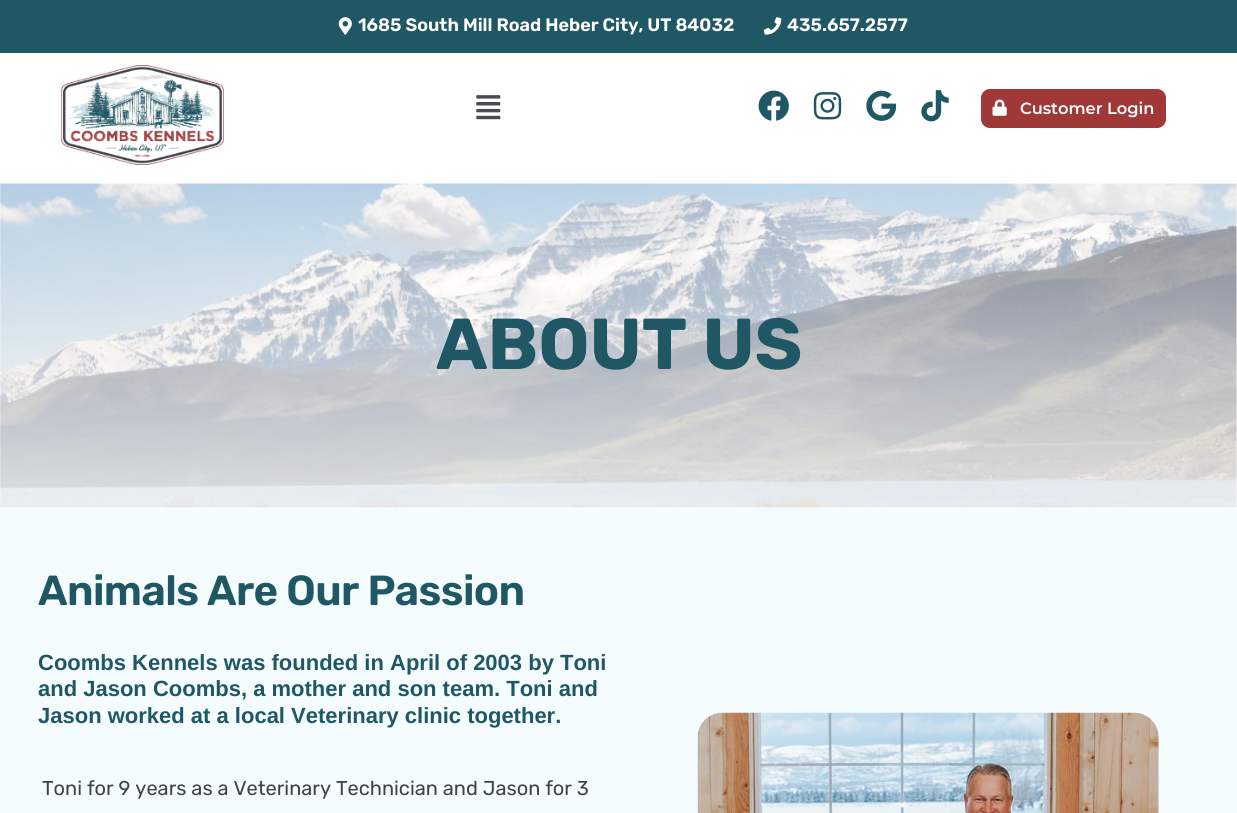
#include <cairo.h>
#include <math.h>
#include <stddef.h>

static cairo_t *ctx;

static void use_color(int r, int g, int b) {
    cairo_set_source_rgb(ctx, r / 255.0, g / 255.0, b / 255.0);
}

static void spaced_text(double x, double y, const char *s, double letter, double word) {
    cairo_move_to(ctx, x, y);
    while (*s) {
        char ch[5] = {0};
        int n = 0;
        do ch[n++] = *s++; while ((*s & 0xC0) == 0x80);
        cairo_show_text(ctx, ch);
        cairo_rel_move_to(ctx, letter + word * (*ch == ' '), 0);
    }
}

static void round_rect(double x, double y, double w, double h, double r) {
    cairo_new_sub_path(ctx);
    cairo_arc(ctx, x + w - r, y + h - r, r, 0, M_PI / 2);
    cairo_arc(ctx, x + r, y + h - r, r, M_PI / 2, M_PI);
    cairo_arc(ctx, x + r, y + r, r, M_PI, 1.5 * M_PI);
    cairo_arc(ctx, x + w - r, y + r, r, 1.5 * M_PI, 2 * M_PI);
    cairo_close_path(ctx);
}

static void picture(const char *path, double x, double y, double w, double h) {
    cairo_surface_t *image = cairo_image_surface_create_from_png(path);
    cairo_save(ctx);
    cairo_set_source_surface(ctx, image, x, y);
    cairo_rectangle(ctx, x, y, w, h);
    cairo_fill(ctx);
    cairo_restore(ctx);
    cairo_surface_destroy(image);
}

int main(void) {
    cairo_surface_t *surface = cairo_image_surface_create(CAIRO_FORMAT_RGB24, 1237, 813);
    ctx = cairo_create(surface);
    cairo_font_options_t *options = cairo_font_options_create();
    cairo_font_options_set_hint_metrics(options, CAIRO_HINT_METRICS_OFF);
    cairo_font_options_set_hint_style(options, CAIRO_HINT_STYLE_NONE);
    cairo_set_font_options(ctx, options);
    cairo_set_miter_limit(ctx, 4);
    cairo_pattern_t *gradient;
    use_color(255, 255, 255);
    cairo_paint(ctx);
    use_color(32, 87, 100);
    cairo_rectangle(ctx, 0, 0, 1237, 53);
    cairo_fill(ctx);
    picture("img1.png", 338, 17, 14, 18);
    cairo_select_font_face(ctx, "Rubik SemiBold", CAIRO_FONT_SLANT_NORMAL, CAIRO_FONT_WEIGHT_NORMAL);
    cairo_set_font_size(ctx, 18);
    use_color(255, 255, 255);
    cairo_move_to(ctx, 358, 31);
    cairo_show_text(ctx, "1685 South Mill Road Heber City, UT 84032");
    picture("img2.png", 763, 17, 19, 18);
    cairo_move_to(ctx, 787, 31);
    cairo_show_text(ctx, "435.657.2577");
    picture("img3.png", 61, 65, 163, 100);
    picture("img4.png", 476, 95, 25, 25);
    picture("img5.png", 758, 90, 31, 31);
    picture("img6.png", 813, 92, 29, 28);
    picture("img7.png", 866, 90, 31, 31);
    picture("img8.png", 921, 90, 28, 32);
    use_color(160, 56, 55);
    round_rect(981.5, 89.5, 184, 38, 8.5);
    cairo_fill_preserve(ctx);
    cairo_set_line_width(ctx, 1);
    cairo_stroke(ctx);
    picture("img9.png", 992, 99, 15, 17);
    cairo_select_font_face(ctx, "Montserrat SemiBold", CAIRO_FONT_SLANT_NORMAL, CAIRO_FONT_WEIGHT_NORMAL);
    cairo_set_font_size(ctx, 16.25);
    use_color(255, 255, 255);
    cairo_move_to(ctx, 1020, 114);
    cairo_show_text(ctx, "Customer Login");
    picture("img10.png", 0, 183, 1237, 325);
    gradient = cairo_pattern_create_linear(619, 184, 619, 508);
    cairo_pattern_add_color_stop_rgba(gradient, 0, 1, 1, 1, 0.41);
    cairo_pattern_add_color_stop_rgba(gradient, 1, 1, 1, 1, 0.84);
    cairo_set_source(ctx, gradient);
    cairo_pattern_destroy(gradient);
    cairo_rectangle(ctx, 0, 184, 1237, 324);
    cairo_fill(ctx);
    cairo_select_font_face(ctx, "Rubik", CAIRO_FONT_SLANT_NORMAL, CAIRO_FONT_WEIGHT_BOLD);
    cairo_set_font_size(ctx, 72);
    use_color(32, 87, 100);
    cairo_move_to(ctx, 436, 369);
    cairo_show_text(ctx, "ABOUT US");
    use_color(244, 252, 253);
    cairo_rectangle(ctx, 0, 508, 1237, 305);
    cairo_fill(ctx);
    cairo_select_font_face(ctx, "Rubik SemiBold", CAIRO_FONT_SLANT_NORMAL, CAIRO_FONT_WEIGHT_NORMAL);
    cairo_set_font_size(ctx, 42);
    use_color(32, 87, 100);
    spaced_text(38, 605, "Animals Are Our Passion", -0.6, 0);
    cairo_select_font_face(ctx, "Liberation Sans", CAIRO_FONT_SLANT_NORMAL, CAIRO_FONT_WEIGHT_BOLD);
    cairo_set_font_size(ctx, 22);
    cairo_move_to(ctx, 38, 670);
    cairo_show_text(ctx, "Coombs Kennels was founded in April of 2003 by Toni");
    cairo_move_to(ctx, 38, 696);
    cairo_show_text(ctx, "and Jason Coombs, a mother and son team. Toni and");
    cairo_move_to(ctx, 38, 723);
    cairo_show_text(ctx, "Jason worked at a local Veterinary clinic together.");
    cairo_select_font_face(ctx, "Rubik", CAIRO_FONT_SLANT_NORMAL, CAIRO_FONT_WEIGHT_NORMAL);
    cairo_set_font_size(ctx, 20);
    use_color(63, 67, 72);
    cairo_move_to(ctx, 42, 795);
    cairo_show_text(ctx, "Toni for 9 years as a Veterinary Technician and Jason for 3");
    picture("img11.png", 697, 712, 462, 101);
    cairo_surface_write_to_png(surface, "result.png");
    cairo_font_options_destroy(options);
    cairo_destroy(ctx);
    cairo_surface_destroy(surface);
    return 0;
}
